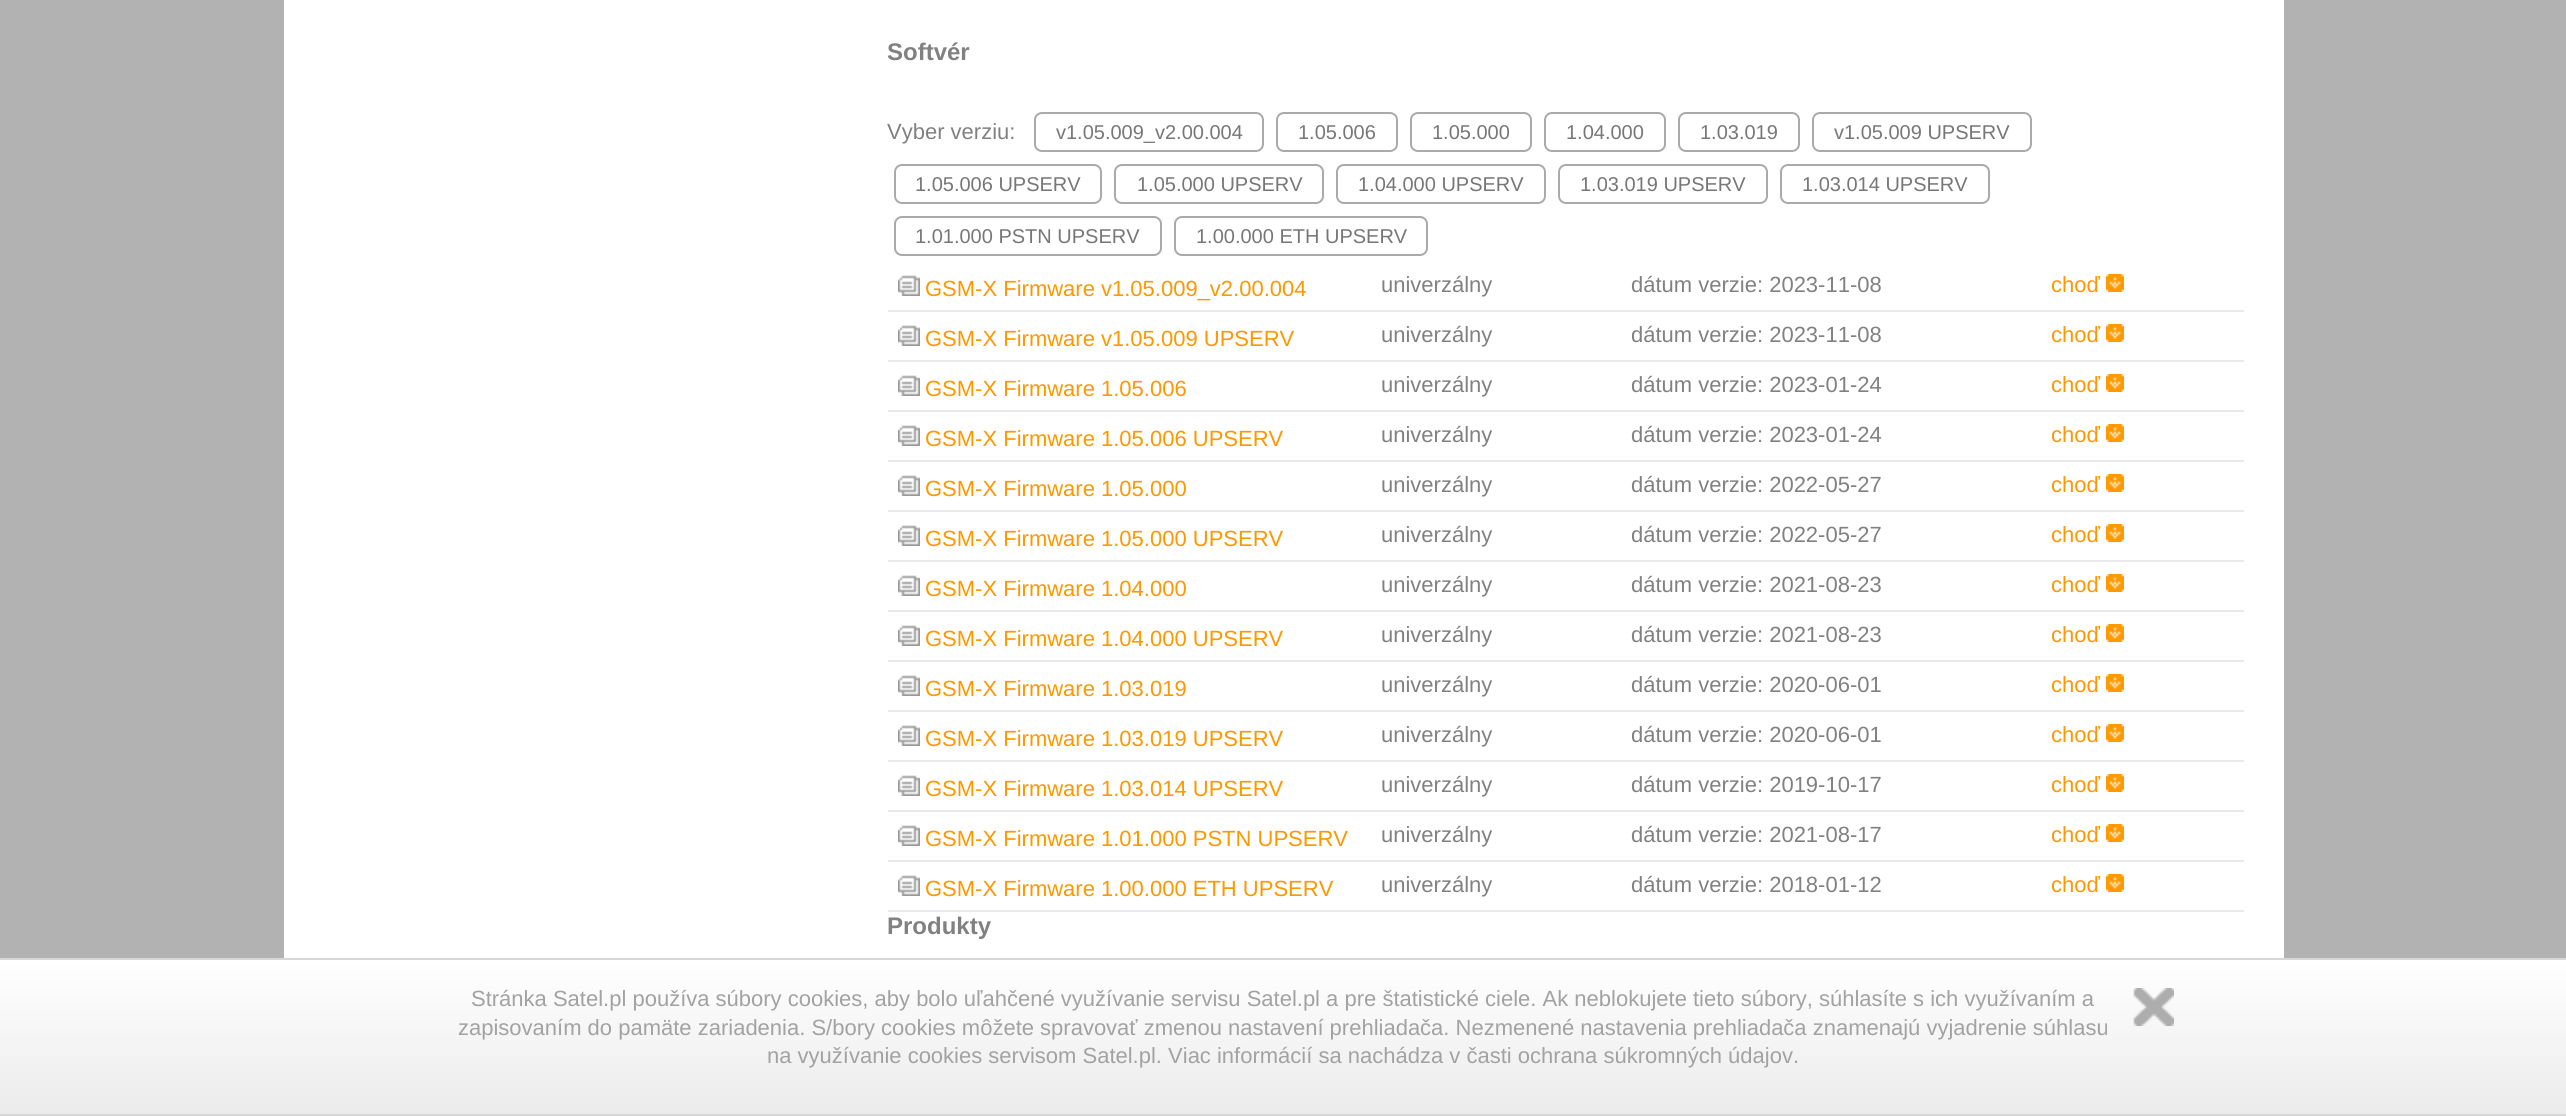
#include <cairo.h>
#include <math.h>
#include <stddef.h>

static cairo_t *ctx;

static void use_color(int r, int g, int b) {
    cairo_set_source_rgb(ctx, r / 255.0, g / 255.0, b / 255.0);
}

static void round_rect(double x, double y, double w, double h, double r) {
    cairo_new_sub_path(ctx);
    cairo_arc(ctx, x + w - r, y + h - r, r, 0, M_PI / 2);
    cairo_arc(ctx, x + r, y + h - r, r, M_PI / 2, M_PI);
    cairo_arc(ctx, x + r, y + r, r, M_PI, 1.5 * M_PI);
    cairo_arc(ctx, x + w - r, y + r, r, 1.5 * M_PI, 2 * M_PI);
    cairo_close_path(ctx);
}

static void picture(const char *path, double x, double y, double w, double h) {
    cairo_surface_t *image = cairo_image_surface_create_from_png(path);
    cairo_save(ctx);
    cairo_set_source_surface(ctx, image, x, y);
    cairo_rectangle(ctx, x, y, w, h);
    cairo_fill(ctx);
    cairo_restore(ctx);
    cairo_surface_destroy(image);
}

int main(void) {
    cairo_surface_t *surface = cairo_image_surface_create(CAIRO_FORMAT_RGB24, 2566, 1116);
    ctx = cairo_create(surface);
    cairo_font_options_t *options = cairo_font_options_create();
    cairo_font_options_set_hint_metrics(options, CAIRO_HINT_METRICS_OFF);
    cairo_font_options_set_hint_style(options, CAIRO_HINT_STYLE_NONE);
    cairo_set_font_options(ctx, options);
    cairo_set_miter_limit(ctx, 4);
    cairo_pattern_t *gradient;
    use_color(178, 178, 178);
    cairo_paint(ctx);
    use_color(255, 255, 255);
    cairo_rectangle(ctx, 284, 0, 2000, 958);
    cairo_fill(ctx);
    cairo_select_font_face(ctx, "Liberation Sans", CAIRO_FONT_SLANT_NORMAL, CAIRO_FONT_WEIGHT_BOLD);
    cairo_set_font_size(ctx, 24);
    use_color(129, 129, 129);
    cairo_move_to(ctx, 887, 60);
    cairo_show_text(ctx, "Softvér");
    cairo_select_font_face(ctx, "Liberation Sans", CAIRO_FONT_SLANT_NORMAL, CAIRO_FONT_WEIGHT_NORMAL);
    cairo_set_font_size(ctx, 22);
    cairo_move_to(ctx, 887, 139);
    cairo_show_text(ctx, "Vyber verziu:");
    round_rect(1035, 113, 228, 38, 7);
    use_color(170, 170, 170);
    cairo_stroke(ctx);
    cairo_set_font_size(ctx, 20);
    use_color(119, 119, 119);
    cairo_move_to(ctx, 1056, 139);
    cairo_show_text(ctx, "v1.05.009_v2.00.004");
    round_rect(1277, 113, 120, 38, 7);
    use_color(170, 170, 170);
    cairo_stroke(ctx);
    use_color(119, 119, 119);
    cairo_move_to(ctx, 1298, 139);
    cairo_show_text(ctx, "1.05.006");
    round_rect(1411, 113, 120, 38, 7);
    use_color(170, 170, 170);
    cairo_stroke(ctx);
    use_color(119, 119, 119);
    cairo_move_to(ctx, 1432, 139);
    cairo_show_text(ctx, "1.05.000");
    round_rect(1545, 113, 120, 38, 7);
    use_color(170, 170, 170);
    cairo_stroke(ctx);
    use_color(119, 119, 119);
    cairo_move_to(ctx, 1566, 139);
    cairo_show_text(ctx, "1.04.000");
    round_rect(1679, 113, 120, 38, 7);
    use_color(170, 170, 170);
    cairo_stroke(ctx);
    use_color(119, 119, 119);
    cairo_move_to(ctx, 1700, 139);
    cairo_show_text(ctx, "1.03.019");
    round_rect(1813, 113, 218, 38, 7);
    use_color(170, 170, 170);
    cairo_stroke(ctx);
    use_color(119, 119, 119);
    cairo_move_to(ctx, 1834, 139);
    cairo_show_text(ctx, "v1.05.009 UPSERV");
    round_rect(895, 165, 206, 38, 7);
    use_color(170, 170, 170);
    cairo_stroke(ctx);
    use_color(119, 119, 119);
    cairo_move_to(ctx, 915, 191);
    cairo_show_text(ctx, "1.05.006 UPSERV");
    round_rect(1115, 165, 208, 38, 7);
    use_color(170, 170, 170);
    cairo_stroke(ctx);
    use_color(119, 119, 119);
    cairo_move_to(ctx, 1137, 191);
    cairo_show_text(ctx, "1.05.000 UPSERV");
    round_rect(1337, 165, 208, 38, 7);
    use_color(170, 170, 170);
    cairo_stroke(ctx);
    use_color(119, 119, 119);
    cairo_move_to(ctx, 1358, 191);
    cairo_show_text(ctx, "1.04.000 UPSERV");
    round_rect(1559, 165, 208, 38, 7);
    use_color(170, 170, 170);
    cairo_stroke(ctx);
    use_color(119, 119, 119);
    cairo_move_to(ctx, 1580, 191);
    cairo_show_text(ctx, "1.03.019 UPSERV");
    round_rect(1781, 165, 208, 38, 7);
    use_color(170, 170, 170);
    cairo_stroke(ctx);
    use_color(119, 119, 119);
    cairo_move_to(ctx, 1802, 191);
    cairo_show_text(ctx, "1.03.014 UPSERV");
    round_rect(895, 217, 266, 38, 7);
    use_color(170, 170, 170);
    cairo_stroke(ctx);
    use_color(119, 119, 119);
    cairo_move_to(ctx, 915, 243);
    cairo_show_text(ctx, "1.01.000 PSTN UPSERV");
    round_rect(1175, 217, 252, 38, 7);
    use_color(170, 170, 170);
    cairo_stroke(ctx);
    use_color(119, 119, 119);
    cairo_move_to(ctx, 1196, 243);
    cairo_show_text(ctx, "1.00.000 ETH UPSERV");
    use_color(234, 234, 234);
    cairo_rectangle(ctx, 888, 310, 1356, 2);
    cairo_fill(ctx);
    picture("img1.png", 898, 275, 22, 21);
    cairo_set_font_size(ctx, 22);
    use_color(252, 152, 0);
    cairo_move_to(ctx, 925, 296);
    cairo_show_text(ctx, "GSM-X Firmware v1.05.009_v2.00.004");
    use_color(129, 129, 129);
    cairo_move_to(ctx, 1381, 292);
    cairo_show_text(ctx, "univerzálny");
    cairo_move_to(ctx, 1631, 292);
    cairo_show_text(ctx, "dátum verzie: 2023-11-08");
    use_color(252, 152, 0);
    cairo_move_to(ctx, 2051, 292);
    cairo_show_text(ctx, "choď");
    picture("img2.png", 2106, 274, 18, 18);
    use_color(234, 234, 234);
    cairo_rectangle(ctx, 888, 360, 1356, 2);
    cairo_fill(ctx);
    picture("img1.png", 898, 325, 22, 21);
    use_color(252, 152, 0);
    cairo_move_to(ctx, 925, 346);
    cairo_show_text(ctx, "GSM-X Firmware v1.05.009 UPSERV");
    use_color(129, 129, 129);
    cairo_move_to(ctx, 1381, 342);
    cairo_show_text(ctx, "univerzálny");
    cairo_move_to(ctx, 1631, 342);
    cairo_show_text(ctx, "dátum verzie: 2023-11-08");
    use_color(252, 152, 0);
    cairo_move_to(ctx, 2051, 342);
    cairo_show_text(ctx, "choď");
    picture("img2.png", 2106, 324, 18, 18);
    use_color(234, 234, 234);
    cairo_rectangle(ctx, 888, 410, 1356, 2);
    cairo_fill(ctx);
    picture("img1.png", 898, 375, 22, 21);
    use_color(252, 152, 0);
    cairo_move_to(ctx, 925, 396);
    cairo_show_text(ctx, "GSM-X Firmware 1.05.006");
    use_color(129, 129, 129);
    cairo_move_to(ctx, 1381, 392);
    cairo_show_text(ctx, "univerzálny");
    cairo_move_to(ctx, 1631, 392);
    cairo_show_text(ctx, "dátum verzie: 2023-01-24");
    use_color(252, 152, 0);
    cairo_move_to(ctx, 2051, 392);
    cairo_show_text(ctx, "choď");
    picture("img2.png", 2106, 374, 18, 18);
    use_color(234, 234, 234);
    cairo_rectangle(ctx, 888, 460, 1356, 2);
    cairo_fill(ctx);
    picture("img1.png", 898, 425, 22, 21);
    use_color(252, 152, 0);
    cairo_move_to(ctx, 925, 446);
    cairo_show_text(ctx, "GSM-X Firmware 1.05.006 UPSERV");
    use_color(129, 129, 129);
    cairo_move_to(ctx, 1381, 442);
    cairo_show_text(ctx, "univerzálny");
    cairo_move_to(ctx, 1631, 442);
    cairo_show_text(ctx, "dátum verzie: 2023-01-24");
    use_color(252, 152, 0);
    cairo_move_to(ctx, 2051, 442);
    cairo_show_text(ctx, "choď");
    picture("img2.png", 2106, 424, 18, 18);
    use_color(234, 234, 234);
    cairo_rectangle(ctx, 888, 510, 1356, 2);
    cairo_fill(ctx);
    picture("img1.png", 898, 475, 22, 21);
    use_color(252, 152, 0);
    cairo_move_to(ctx, 925, 496);
    cairo_show_text(ctx, "GSM-X Firmware 1.05.000");
    use_color(129, 129, 129);
    cairo_move_to(ctx, 1381, 492);
    cairo_show_text(ctx, "univerzálny");
    cairo_move_to(ctx, 1631, 492);
    cairo_show_text(ctx, "dátum verzie: 2022-05-27");
    use_color(252, 152, 0);
    cairo_move_to(ctx, 2051, 492);
    cairo_show_text(ctx, "choď");
    picture("img2.png", 2106, 474, 18, 18);
    use_color(234, 234, 234);
    cairo_rectangle(ctx, 888, 560, 1356, 2);
    cairo_fill(ctx);
    picture("img1.png", 898, 525, 22, 21);
    use_color(252, 152, 0);
    cairo_move_to(ctx, 925, 546);
    cairo_show_text(ctx, "GSM-X Firmware 1.05.000 UPSERV");
    use_color(129, 129, 129);
    cairo_move_to(ctx, 1381, 542);
    cairo_show_text(ctx, "univerzálny");
    cairo_move_to(ctx, 1631, 542);
    cairo_show_text(ctx, "dátum verzie: 2022-05-27");
    use_color(252, 152, 0);
    cairo_move_to(ctx, 2051, 542);
    cairo_show_text(ctx, "choď");
    picture("img2.png", 2106, 524, 18, 18);
    use_color(234, 234, 234);
    cairo_rectangle(ctx, 888, 610, 1356, 2);
    cairo_fill(ctx);
    picture("img1.png", 898, 575, 22, 21);
    use_color(252, 152, 0);
    cairo_move_to(ctx, 925, 596);
    cairo_show_text(ctx, "GSM-X Firmware 1.04.000");
    use_color(129, 129, 129);
    cairo_move_to(ctx, 1381, 592);
    cairo_show_text(ctx, "univerzálny");
    cairo_move_to(ctx, 1631, 592);
    cairo_show_text(ctx, "dátum verzie: 2021-08-23");
    use_color(252, 152, 0);
    cairo_move_to(ctx, 2051, 592);
    cairo_show_text(ctx, "choď");
    picture("img2.png", 2106, 574, 18, 18);
    use_color(234, 234, 234);
    cairo_rectangle(ctx, 888, 660, 1356, 2);
    cairo_fill(ctx);
    picture("img1.png", 898, 625, 22, 21);
    use_color(252, 152, 0);
    cairo_move_to(ctx, 925, 646);
    cairo_show_text(ctx, "GSM-X Firmware 1.04.000 UPSERV");
    use_color(129, 129, 129);
    cairo_move_to(ctx, 1381, 642);
    cairo_show_text(ctx, "univerzálny");
    cairo_move_to(ctx, 1631, 642);
    cairo_show_text(ctx, "dátum verzie: 2021-08-23");
    use_color(252, 152, 0);
    cairo_move_to(ctx, 2051, 642);
    cairo_show_text(ctx, "choď");
    picture("img2.png", 2106, 624, 18, 18);
    use_color(234, 234, 234);
    cairo_rectangle(ctx, 888, 710, 1356, 2);
    cairo_fill(ctx);
    picture("img1.png", 898, 675, 22, 21);
    use_color(252, 152, 0);
    cairo_move_to(ctx, 925, 696);
    cairo_show_text(ctx, "GSM-X Firmware 1.03.019");
    use_color(129, 129, 129);
    cairo_move_to(ctx, 1381, 692);
    cairo_show_text(ctx, "univerzálny");
    cairo_move_to(ctx, 1631, 692);
    cairo_show_text(ctx, "dátum verzie: 2020-06-01");
    use_color(252, 152, 0);
    cairo_move_to(ctx, 2051, 692);
    cairo_show_text(ctx, "choď");
    picture("img2.png", 2106, 674, 18, 18);
    use_color(234, 234, 234);
    cairo_rectangle(ctx, 888, 760, 1356, 2);
    cairo_fill(ctx);
    picture("img1.png", 898, 725, 22, 21);
    use_color(252, 152, 0);
    cairo_move_to(ctx, 925, 746);
    cairo_show_text(ctx, "GSM-X Firmware 1.03.019 UPSERV");
    use_color(129, 129, 129);
    cairo_move_to(ctx, 1381, 742);
    cairo_show_text(ctx, "univerzálny");
    cairo_move_to(ctx, 1631, 742);
    cairo_show_text(ctx, "dátum verzie: 2020-06-01");
    use_color(252, 152, 0);
    cairo_move_to(ctx, 2051, 742);
    cairo_show_text(ctx, "choď");
    picture("img2.png", 2106, 724, 18, 18);
    use_color(234, 234, 234);
    cairo_rectangle(ctx, 888, 810, 1356, 2);
    cairo_fill(ctx);
    picture("img1.png", 898, 775, 22, 21);
    use_color(252, 152, 0);
    cairo_move_to(ctx, 925, 796);
    cairo_show_text(ctx, "GSM-X Firmware 1.03.014 UPSERV");
    use_color(129, 129, 129);
    cairo_move_to(ctx, 1381, 792);
    cairo_show_text(ctx, "univerzálny");
    cairo_move_to(ctx, 1631, 792);
    cairo_show_text(ctx, "dátum verzie: 2019-10-17");
    use_color(252, 152, 0);
    cairo_move_to(ctx, 2051, 792);
    cairo_show_text(ctx, "choď");
    picture("img2.png", 2106, 774, 18, 18);
    use_color(234, 234, 234);
    cairo_rectangle(ctx, 888, 860, 1356, 2);
    cairo_fill(ctx);
    picture("img1.png", 898, 825, 22, 21);
    use_color(252, 152, 0);
    cairo_move_to(ctx, 925, 846);
    cairo_show_text(ctx, "GSM-X Firmware 1.01.000 PSTN UPSERV");
    use_color(129, 129, 129);
    cairo_move_to(ctx, 1381, 842);
    cairo_show_text(ctx, "univerzálny");
    cairo_move_to(ctx, 1631, 842);
    cairo_show_text(ctx, "dátum verzie: 2021-08-17");
    use_color(252, 152, 0);
    cairo_move_to(ctx, 2051, 842);
    cairo_show_text(ctx, "choď");
    picture("img2.png", 2106, 824, 18, 18);
    use_color(234, 234, 234);
    cairo_rectangle(ctx, 888, 910, 1356, 2);
    cairo_fill(ctx);
    picture("img1.png", 898, 875, 22, 21);
    use_color(252, 152, 0);
    cairo_move_to(ctx, 925, 896);
    cairo_show_text(ctx, "GSM-X Firmware 1.00.000 ETH UPSERV");
    use_color(129, 129, 129);
    cairo_move_to(ctx, 1381, 892);
    cairo_show_text(ctx, "univerzálny");
    cairo_move_to(ctx, 1631, 892);
    cairo_show_text(ctx, "dátum verzie: 2018-01-12");
    use_color(252, 152, 0);
    cairo_move_to(ctx, 2051, 892);
    cairo_show_text(ctx, "choď");
    picture("img2.png", 2106, 874, 18, 18);
    cairo_select_font_face(ctx, "Liberation Sans", CAIRO_FONT_SLANT_NORMAL, CAIRO_FONT_WEIGHT_BOLD);
    cairo_set_font_size(ctx, 24);
    use_color(129, 129, 129);
    cairo_move_to(ctx, 887, 934);
    cairo_show_text(ctx, "Produkty");
    gradient = cairo_pattern_create_linear(1283, 960, 1283, 1114);
    cairo_pattern_add_color_stop_rgba(gradient, 0, 1, 1, 1, 1);
    cairo_pattern_add_color_stop_rgba(gradient, 1, 0.922, 0.922, 0.922, 1);
    cairo_set_source(ctx, gradient);
    cairo_pattern_destroy(gradient);
    cairo_rectangle(ctx, 0, 960, 2566, 154);
    cairo_fill(ctx);
    use_color(215, 215, 215);
    cairo_rectangle(ctx, 0, 958, 2566, 2);
    cairo_fill(ctx);
    cairo_rectangle(ctx, 0, 1114, 2566, 2);
    cairo_fill(ctx);
    cairo_select_font_face(ctx, "Liberation Sans", CAIRO_FONT_SLANT_NORMAL, CAIRO_FONT_WEIGHT_NORMAL);
    cairo_set_font_size(ctx, 22);
    use_color(162, 162, 162);
    cairo_move_to(ctx, 471, 1006);
    cairo_show_text(ctx, "Stránka Satel.pl používa súbory cookies, aby bolo uľahčené využívanie servisu Satel.pl a pre štatistické ciele. Ak neblokujete tieto súbory, súhlasíte s ich využívaním a");
    cairo_move_to(ctx, 458, 1035);
    cairo_show_text(ctx, "zapisovaním do pamäte zariadenia. S/bory cookies môžete spravovať zmenou nastavení prehliadača. Nezmenené nastavenia prehliadača znamenajú vyjadrenie súhlasu");
    cairo_move_to(ctx, 767, 1063);
    cairo_show_text(ctx, "na využívanie cookies servisom Satel.pl. Viac informácií sa nachádza v časti ochrana súkromných údajov.");
    picture("img3.png", 2133, 988, 41, 38);
    cairo_surface_write_to_png(surface, "result.png");
    cairo_font_options_destroy(options);
    cairo_destroy(ctx);
    cairo_surface_destroy(surface);
    return 0;
}
